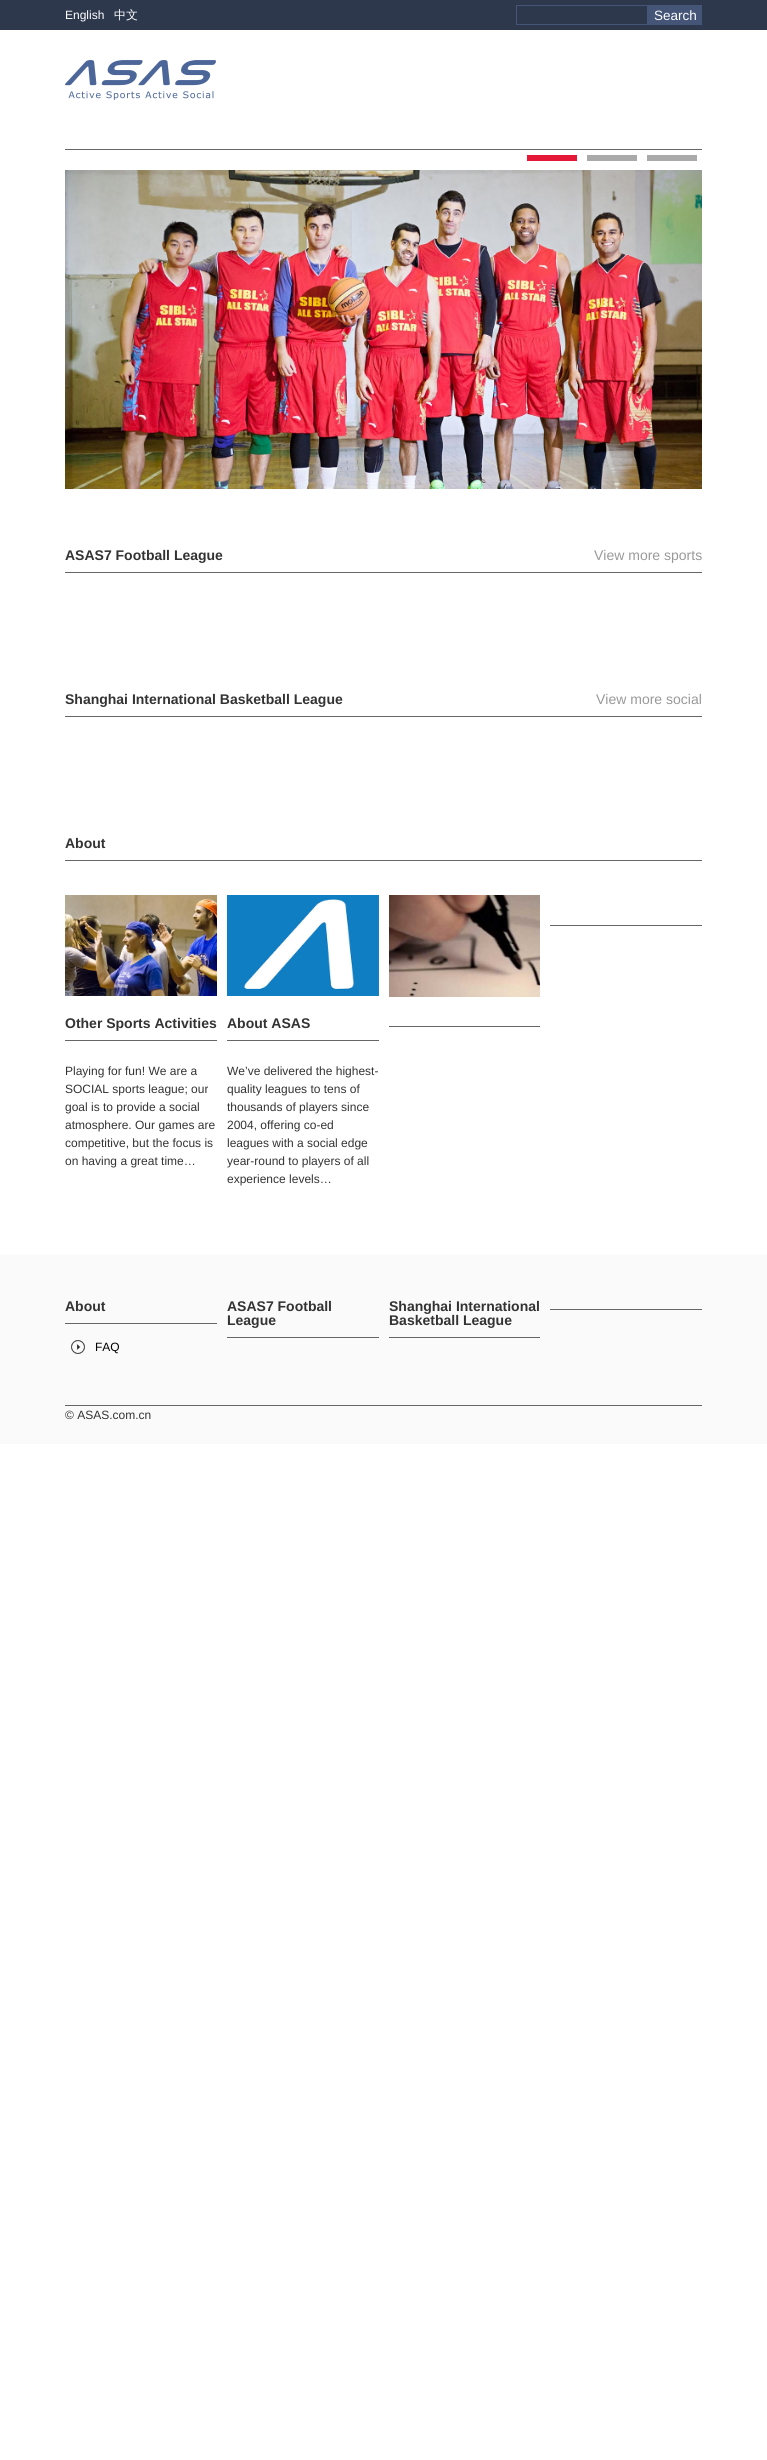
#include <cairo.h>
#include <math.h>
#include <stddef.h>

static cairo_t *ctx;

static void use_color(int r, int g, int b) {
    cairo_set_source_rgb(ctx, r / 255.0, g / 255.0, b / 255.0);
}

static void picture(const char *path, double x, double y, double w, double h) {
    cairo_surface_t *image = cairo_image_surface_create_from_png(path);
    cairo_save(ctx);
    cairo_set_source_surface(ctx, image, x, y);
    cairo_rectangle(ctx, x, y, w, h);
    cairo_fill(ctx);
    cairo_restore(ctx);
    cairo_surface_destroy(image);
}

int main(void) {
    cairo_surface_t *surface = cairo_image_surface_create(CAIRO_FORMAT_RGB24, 767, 2460);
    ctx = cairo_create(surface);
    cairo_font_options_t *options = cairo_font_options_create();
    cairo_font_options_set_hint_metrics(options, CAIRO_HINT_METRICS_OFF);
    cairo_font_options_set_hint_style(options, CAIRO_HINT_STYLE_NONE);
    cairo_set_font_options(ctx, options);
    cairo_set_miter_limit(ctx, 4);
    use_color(255, 255, 255);
    cairo_paint(ctx);
    use_color(46, 56, 77);
    cairo_rectangle(ctx, 0, 0, 767, 30);
    cairo_fill(ctx);
    cairo_select_font_face(ctx, "Liberation Sans", CAIRO_FONT_SLANT_NORMAL, CAIRO_FONT_WEIGHT_NORMAL);
    cairo_set_font_size(ctx, 12);
    use_color(255, 255, 255);
    cairo_move_to(ctx, 65, 19);
    cairo_show_text(ctx, "English");
    cairo_select_font_face(ctx, "WenQuanYi Zen Hei Medium", CAIRO_FONT_SLANT_NORMAL, CAIRO_FONT_WEIGHT_NORMAL);
    cairo_move_to(ctx, 114, 19);
    cairo_show_text(ctx, "中文");
    cairo_rectangle(ctx, 516.5, 5.5, 131, 19);
    use_color(68, 85, 119);
    cairo_set_line_width(ctx, 1);
    cairo_stroke(ctx);
    cairo_rectangle(ctx, 648, 5, 54, 20);
    cairo_fill(ctx);
    cairo_select_font_face(ctx, "Liberation Sans", CAIRO_FONT_SLANT_NORMAL, CAIRO_FONT_WEIGHT_NORMAL);
    cairo_set_font_size(ctx, 13.5);
    use_color(255, 255, 255);
    cairo_move_to(ctx, 654, 20);
    cairo_show_text(ctx, "Search");
    picture("img1.png", 65, 60, 151, 40);
    use_color(102, 102, 102);
    cairo_rectangle(ctx, 65, 149, 637, 1);
    cairo_fill(ctx);
    use_color(229, 24, 55);
    cairo_rectangle(ctx, 527, 155, 50, 6);
    cairo_fill(ctx);
    use_color(170, 170, 170);
    cairo_rectangle(ctx, 587, 155, 50, 6);
    cairo_fill(ctx);
    cairo_rectangle(ctx, 647, 155, 50, 6);
    cairo_fill(ctx);
    picture("img2.png", 65, 170, 637, 319);
    use_color(102, 102, 102);
    cairo_rectangle(ctx, 65, 572, 637, 1);
    cairo_fill(ctx);
    cairo_select_font_face(ctx, "Liberation Sans", CAIRO_FONT_SLANT_NORMAL, CAIRO_FONT_WEIGHT_BOLD);
    cairo_set_font_size(ctx, 14);
    use_color(51, 51, 51);
    cairo_move_to(ctx, 65, 560);
    cairo_show_text(ctx, "ASAS7 Football League");
    cairo_select_font_face(ctx, "Liberation Sans", CAIRO_FONT_SLANT_NORMAL, CAIRO_FONT_WEIGHT_NORMAL);
    use_color(153, 153, 153);
    cairo_move_to(ctx, 594, 560);
    cairo_show_text(ctx, "View more sports");
    use_color(102, 102, 102);
    cairo_rectangle(ctx, 65, 716, 637, 1);
    cairo_fill(ctx);
    cairo_select_font_face(ctx, "Liberation Sans", CAIRO_FONT_SLANT_NORMAL, CAIRO_FONT_WEIGHT_BOLD);
    use_color(51, 51, 51);
    cairo_move_to(ctx, 65, 704);
    cairo_show_text(ctx, "Shanghai International Basketball League");
    cairo_select_font_face(ctx, "Liberation Sans", CAIRO_FONT_SLANT_NORMAL, CAIRO_FONT_WEIGHT_NORMAL);
    use_color(153, 153, 153);
    cairo_move_to(ctx, 596, 704);
    cairo_show_text(ctx, "View more social");
    use_color(102, 102, 102);
    cairo_rectangle(ctx, 65, 860, 637, 1);
    cairo_fill(ctx);
    cairo_select_font_face(ctx, "Liberation Sans", CAIRO_FONT_SLANT_NORMAL, CAIRO_FONT_WEIGHT_BOLD);
    use_color(51, 51, 51);
    cairo_move_to(ctx, 65, 848);
    cairo_show_text(ctx, "About");
    picture("img3.png", 389, 895, 151, 102);
    use_color(102, 102, 102);
    cairo_rectangle(ctx, 389, 1026, 151, 1);
    cairo_fill(ctx);
    cairo_rectangle(ctx, 550, 925, 152, 1);
    cairo_fill(ctx);
    picture("img4.png", 65, 895, 152, 101);
    cairo_rectangle(ctx, 65, 1040, 152, 1);
    cairo_fill(ctx);
    use_color(51, 51, 51);
    cairo_move_to(ctx, 65, 1028);
    cairo_show_text(ctx, "Other Sports Activities");
    cairo_select_font_face(ctx, "Liberation Sans", CAIRO_FONT_SLANT_NORMAL, CAIRO_FONT_WEIGHT_NORMAL);
    cairo_set_font_size(ctx, 12);
    cairo_move_to(ctx, 65, 1075);
    cairo_show_text(ctx, "Playing for fun! We are a");
    cairo_move_to(ctx, 65, 1093);
    cairo_show_text(ctx, "SOCIAL sports league; our");
    cairo_move_to(ctx, 65, 1111);
    cairo_show_text(ctx, "goal is to provide a social");
    cairo_move_to(ctx, 65, 1129);
    cairo_show_text(ctx, "atmosphere. Our games are");
    cairo_move_to(ctx, 65, 1147);
    cairo_show_text(ctx, "competitive, but the focus is");
    cairo_move_to(ctx, 65, 1165);
    cairo_show_text(ctx, "on having a great time…");
    picture("img5.png", 227, 895, 152, 101);
    use_color(102, 102, 102);
    cairo_rectangle(ctx, 227, 1040, 152, 1);
    cairo_fill(ctx);
    cairo_select_font_face(ctx, "Liberation Sans", CAIRO_FONT_SLANT_NORMAL, CAIRO_FONT_WEIGHT_BOLD);
    cairo_set_font_size(ctx, 14);
    use_color(51, 51, 51);
    cairo_move_to(ctx, 227, 1028);
    cairo_show_text(ctx, "About ASAS");
    cairo_select_font_face(ctx, "Liberation Sans", CAIRO_FONT_SLANT_NORMAL, CAIRO_FONT_WEIGHT_NORMAL);
    cairo_set_font_size(ctx, 12);
    cairo_move_to(ctx, 227, 1075);
    cairo_show_text(ctx, "We’ve delivered the highest-");
    cairo_move_to(ctx, 227, 1093);
    cairo_show_text(ctx, "quality leagues to tens of");
    cairo_move_to(ctx, 227, 1111);
    cairo_show_text(ctx, "thousands of players since");
    cairo_move_to(ctx, 227, 1129);
    cairo_show_text(ctx, "2004, offering co-ed");
    cairo_move_to(ctx, 227, 1147);
    cairo_show_text(ctx, "leagues with a social edge");
    cairo_move_to(ctx, 227, 1165);
    cairo_show_text(ctx, "year-round to players of all");
    cairo_move_to(ctx, 227, 1183);
    cairo_show_text(ctx, "experience levels…");
    use_color(250, 250, 250);
    cairo_rectangle(ctx, 0, 1255, 767, 189);
    cairo_fill(ctx);
    use_color(102, 102, 102);
    cairo_rectangle(ctx, 65, 1323, 152, 1);
    cairo_fill(ctx);
    cairo_select_font_face(ctx, "Liberation Sans", CAIRO_FONT_SLANT_NORMAL, CAIRO_FONT_WEIGHT_BOLD);
    cairo_set_font_size(ctx, 14);
    use_color(51, 51, 51);
    cairo_move_to(ctx, 65, 1311);
    cairo_show_text(ctx, "About");
    picture("img6.png", 71, 1340, 14, 14);
    cairo_select_font_face(ctx, "Liberation Sans", CAIRO_FONT_SLANT_NORMAL, CAIRO_FONT_WEIGHT_NORMAL);
    cairo_set_font_size(ctx, 12);
    use_color(0, 0, 0);
    cairo_move_to(ctx, 95, 1351);
    cairo_show_text(ctx, "FAQ");
    use_color(102, 102, 102);
    cairo_rectangle(ctx, 227, 1337, 152, 1);
    cairo_fill(ctx);
    cairo_select_font_face(ctx, "Liberation Sans", CAIRO_FONT_SLANT_NORMAL, CAIRO_FONT_WEIGHT_BOLD);
    cairo_set_font_size(ctx, 14);
    use_color(51, 51, 51);
    cairo_move_to(ctx, 227, 1311);
    cairo_show_text(ctx, "ASAS7 Football");
    cairo_move_to(ctx, 227, 1325);
    cairo_show_text(ctx, "League");
    use_color(102, 102, 102);
    cairo_rectangle(ctx, 389, 1337, 151, 1);
    cairo_fill(ctx);
    use_color(51, 51, 51);
    cairo_move_to(ctx, 389, 1311);
    cairo_show_text(ctx, "Shanghai International");
    cairo_move_to(ctx, 389, 1325);
    cairo_show_text(ctx, "Basketball League");
    use_color(102, 102, 102);
    cairo_rectangle(ctx, 550, 1309, 152, 1);
    cairo_fill(ctx);
    cairo_rectangle(ctx, 65, 1405, 637, 1);
    cairo_fill(ctx);
    cairo_select_font_face(ctx, "Liberation Sans", CAIRO_FONT_SLANT_NORMAL, CAIRO_FONT_WEIGHT_NORMAL);
    cairo_set_font_size(ctx, 12);
    use_color(51, 51, 51);
    cairo_move_to(ctx, 65, 1419);
    cairo_show_text(ctx, "© ASAS.com.cn");
    cairo_surface_write_to_png(surface, "result.png");
    cairo_font_options_destroy(options);
    cairo_destroy(ctx);
    cairo_surface_destroy(surface);
    return 0;
}
